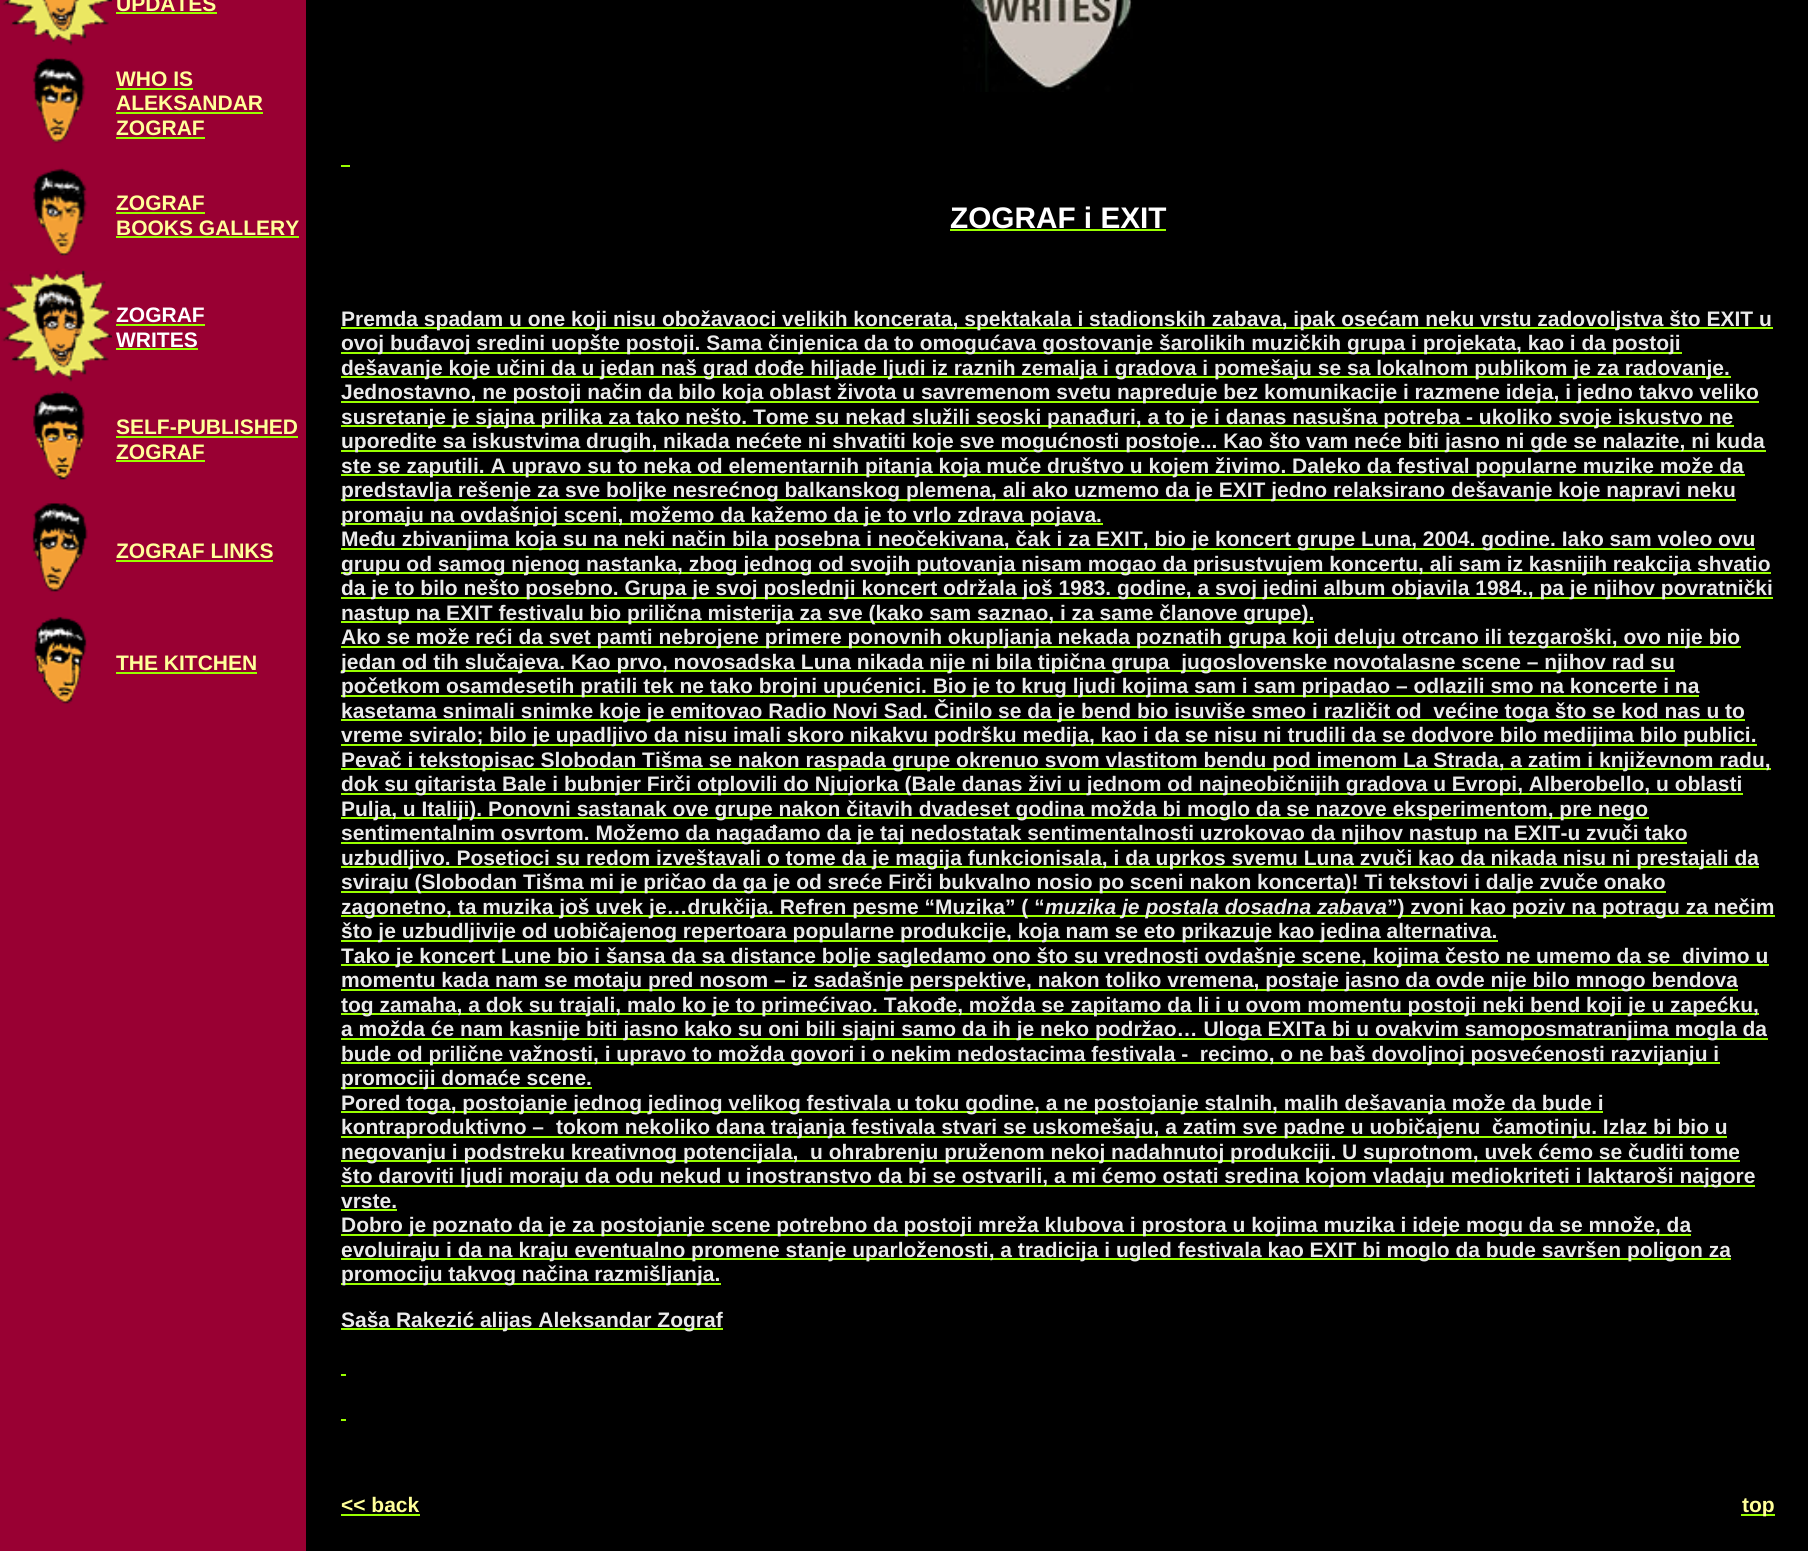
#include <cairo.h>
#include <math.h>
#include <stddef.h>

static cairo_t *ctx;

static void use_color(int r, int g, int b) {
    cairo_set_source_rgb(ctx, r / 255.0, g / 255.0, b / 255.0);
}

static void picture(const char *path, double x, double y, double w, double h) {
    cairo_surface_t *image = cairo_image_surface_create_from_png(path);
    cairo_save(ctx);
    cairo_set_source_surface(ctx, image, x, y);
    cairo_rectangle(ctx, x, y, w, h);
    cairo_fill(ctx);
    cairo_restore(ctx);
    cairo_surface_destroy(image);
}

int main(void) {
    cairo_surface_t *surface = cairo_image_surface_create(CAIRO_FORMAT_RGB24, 1808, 1551);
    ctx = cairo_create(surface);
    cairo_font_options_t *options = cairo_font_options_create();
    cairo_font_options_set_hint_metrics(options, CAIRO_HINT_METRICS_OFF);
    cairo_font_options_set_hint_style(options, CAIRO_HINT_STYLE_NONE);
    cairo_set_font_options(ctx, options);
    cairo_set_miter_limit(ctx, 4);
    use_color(0, 0, 0);
    cairo_paint(ctx);
    use_color(153, 0, 51);
    cairo_rectangle(ctx, 0, 0, 306, 1551);
    cairo_fill(ctx);
    picture("img1.png", 1, 0, 111, 46);
    cairo_select_font_face(ctx, "Liberation Sans", CAIRO_FONT_SLANT_NORMAL, CAIRO_FONT_WEIGHT_BOLD);
    cairo_set_font_size(ctx, 21);
    use_color(255, 255, 153);
    cairo_move_to(ctx, 116, 11);
    cairo_show_text(ctx, "UPDATES");
    use_color(153, 255, 0);
    cairo_rectangle(ctx, 116, 12, 101, 2);
    cairo_fill(ctx);
    picture("img2.png", 32, 57, 54, 87);
    use_color(255, 255, 153);
    cairo_move_to(ctx, 116, 86);
    cairo_show_text(ctx, "WHO IS");
    use_color(153, 255, 0);
    cairo_rectangle(ctx, 116, 88, 77, 2);
    cairo_fill(ctx);
    use_color(255, 255, 153);
    cairo_move_to(ctx, 116, 110);
    cairo_show_text(ctx, "ALEKSANDAR");
    use_color(153, 255, 0);
    cairo_rectangle(ctx, 116, 112, 147, 2);
    cairo_fill(ctx);
    use_color(255, 255, 153);
    cairo_move_to(ctx, 116, 135);
    cairo_show_text(ctx, "ZOGRAF");
    use_color(153, 255, 0);
    cairo_rectangle(ctx, 116, 137, 89, 2);
    cairo_fill(ctx);
    picture("img3.png", 32, 167, 56, 104);
    use_color(255, 255, 153);
    cairo_move_to(ctx, 116, 210);
    cairo_show_text(ctx, "ZOGRAF");
    use_color(153, 255, 0);
    cairo_rectangle(ctx, 116, 212, 89, 2);
    cairo_fill(ctx);
    use_color(255, 255, 153);
    cairo_move_to(ctx, 116, 235);
    cairo_show_text(ctx, "BOOKS GALLERY");
    use_color(153, 255, 0);
    cairo_rectangle(ctx, 116, 236, 183, 2);
    cairo_fill(ctx);
    picture("img4.png", 0, 270, 112, 112);
    use_color(255, 255, 255);
    cairo_move_to(ctx, 116, 322);
    cairo_show_text(ctx, "ZOGRAF");
    use_color(153, 255, 0);
    cairo_rectangle(ctx, 116, 324, 89, 2);
    cairo_fill(ctx);
    use_color(255, 255, 255);
    cairo_move_to(ctx, 116, 347);
    cairo_show_text(ctx, "WRITES");
    use_color(153, 255, 0);
    cairo_rectangle(ctx, 116, 348, 82, 2);
    cairo_fill(ctx);
    picture("img5.png", 32, 391, 53, 89);
    use_color(255, 255, 153);
    cairo_move_to(ctx, 116, 434);
    cairo_show_text(ctx, "SELF-PUBLISHED");
    use_color(153, 255, 0);
    cairo_rectangle(ctx, 116, 436, 182, 2);
    cairo_fill(ctx);
    use_color(255, 255, 153);
    cairo_move_to(ctx, 116, 459);
    cairo_show_text(ctx, "ZOGRAF");
    use_color(153, 255, 0);
    cairo_rectangle(ctx, 116, 460, 89, 2);
    cairo_fill(ctx);
    picture("img6.png", 32, 503, 56, 89);
    use_color(255, 255, 153);
    cairo_move_to(ctx, 116, 558);
    cairo_show_text(ctx, "ZOGRAF LINKS");
    use_color(153, 255, 0);
    cairo_rectangle(ctx, 116, 560, 157, 2);
    cairo_fill(ctx);
    picture("img7.png", 33, 616, 54, 88);
    use_color(255, 255, 153);
    cairo_move_to(ctx, 116, 670);
    cairo_show_text(ctx, "THE KITCHEN");
    use_color(153, 255, 0);
    cairo_rectangle(ctx, 116, 672, 141, 2);
    cairo_fill(ctx);
    picture("img8.png", 963, 0, 170, 92);
    cairo_rectangle(ctx, 341, 165, 9, 2);
    cairo_fill(ctx);
    cairo_set_font_size(ctx, 29.75);
    use_color(255, 255, 255);
    cairo_move_to(ctx, 950, 228);
    cairo_show_text(ctx, "ZOGRAF i EXIT");
    use_color(153, 255, 0);
    cairo_rectangle(ctx, 950, 229, 216, 2);
    cairo_fill(ctx);
    cairo_rectangle(ctx, 341, 327, 1432, 2);
    cairo_fill(ctx);
    cairo_set_font_size(ctx, 21);
    use_color(234, 234, 234);
    cairo_move_to(ctx, 341, 326);
    cairo_show_text(ctx, "Premda spadam u one koji nisu obožavaoci velikih koncerata, spektakala i stadionskih zabava, ipak osećam neku vrstu zadovoljstva što EXIT u");
    use_color(153, 255, 0);
    cairo_rectangle(ctx, 341, 352, 1341, 2);
    cairo_fill(ctx);
    use_color(234, 234, 234);
    cairo_move_to(ctx, 341, 350);
    cairo_show_text(ctx, "ovoj buđavoj sredini uopšte postoji. Sama činjenica da to omogućava gostovanje šarolikih muzičkih grupa i projekata, kao i da postoji");
    use_color(153, 255, 0);
    cairo_rectangle(ctx, 341, 376, 1390, 2);
    cairo_fill(ctx);
    use_color(234, 234, 234);
    cairo_move_to(ctx, 341, 375);
    cairo_show_text(ctx, "dešavanje koje učini da u jedan naš grad dođe hiljade ljudi iz raznih zemalja i gradova i pomešaju se sa lokalnom publikom je za radovanje.");
    use_color(153, 255, 0);
    cairo_rectangle(ctx, 341, 401, 1418, 2);
    cairo_fill(ctx);
    use_color(234, 234, 234);
    cairo_move_to(ctx, 341, 399);
    cairo_show_text(ctx, "Jednostavno, ne postoji način da bilo koja oblast života u savremenom svetu napreduje bez komunikacije i razmene ideja, i jedno takvo veliko");
    use_color(153, 255, 0);
    cairo_rectangle(ctx, 341, 425, 1393, 2);
    cairo_fill(ctx);
    use_color(234, 234, 234);
    cairo_move_to(ctx, 341, 424);
    cairo_show_text(ctx, "susretanje je sjajna prilika za tako nešto. Tome su nekad služili seoski panađuri, a to je i danas nasušna potreba - ukoliko svoje iskustvo ne");
    use_color(153, 255, 0);
    cairo_rectangle(ctx, 341, 450, 1425, 2);
    cairo_fill(ctx);
    use_color(234, 234, 234);
    cairo_move_to(ctx, 341, 448);
    cairo_show_text(ctx, "uporedite sa iskustvima drugih, nikada nećete ni shvatiti koje sve mogućnosti postoje... Kao što vam neće biti jasno ni gde se nalazite, ni kuda");
    use_color(153, 255, 0);
    cairo_rectangle(ctx, 341, 474, 1404, 2);
    cairo_fill(ctx);
    use_color(234, 234, 234);
    cairo_move_to(ctx, 341, 473);
    cairo_show_text(ctx, "ste se zaputili. A upravo su to neka od elementarnih pitanja koja muče društvo u kojem živimo. Daleko da festival popularne muzike može da");
    use_color(153, 255, 0);
    cairo_rectangle(ctx, 341, 499, 1395, 2);
    cairo_fill(ctx);
    use_color(234, 234, 234);
    cairo_move_to(ctx, 341, 497);
    cairo_show_text(ctx, "predstavlja rešenje za sve boljke nesrećnog balkanskog plemena, ali ako uzmemo da je EXIT jedno relaksirano dešavanje koje napravi neku");
    use_color(153, 255, 0);
    cairo_rectangle(ctx, 341, 523, 762, 2);
    cairo_fill(ctx);
    use_color(234, 234, 234);
    cairo_move_to(ctx, 341, 522);
    cairo_show_text(ctx, "promaju na ovdašnjoj sceni, možemo da kažemo da je to vrlo zdrava pojava.");
    use_color(153, 255, 0);
    cairo_rectangle(ctx, 341, 548, 1414, 2);
    cairo_fill(ctx);
    use_color(234, 234, 234);
    cairo_move_to(ctx, 341, 546);
    cairo_show_text(ctx, "Među zbivanjima koja su na neki način bila posebna i neočekivana, čak i za EXIT, bio je koncert grupe Luna, 2004. godine. Iako sam voleo ovu");
    use_color(153, 255, 0);
    cairo_rectangle(ctx, 341, 572, 1430, 2);
    cairo_fill(ctx);
    use_color(234, 234, 234);
    cairo_move_to(ctx, 341, 571);
    cairo_show_text(ctx, "grupu od samog njenog nastanka, zbog jednog od svojih putovanja nisam mogao da prisustvujem koncertu, ali sam iz kasnijih reakcija shvatio");
    use_color(153, 255, 0);
    cairo_rectangle(ctx, 341, 597, 1432, 2);
    cairo_fill(ctx);
    use_color(234, 234, 234);
    cairo_move_to(ctx, 341, 595);
    cairo_show_text(ctx, "da je to bilo nešto posebno. Grupa je svoj poslednji koncert održala još 1983. godine, a svoj jedini album objavila 1984., pa je njihov povratnički");
    use_color(153, 255, 0);
    cairo_rectangle(ctx, 341, 621, 973, 2);
    cairo_fill(ctx);
    use_color(234, 234, 234);
    cairo_move_to(ctx, 341, 620);
    cairo_show_text(ctx, "nastup na EXIT festivalu bio prilična misterija za sve (kako sam saznao, i za same članove grupe).");
    use_color(153, 255, 0);
    cairo_rectangle(ctx, 341, 646, 1400, 2);
    cairo_fill(ctx);
    use_color(234, 234, 234);
    cairo_move_to(ctx, 341, 644);
    cairo_show_text(ctx, "Ako se može reći da svet pamti nebrojene primere ponovnih okupljanja nekada poznatih grupa koji deluju otrcano ili tezgaroški, ovo nije bio");
    use_color(153, 255, 0);
    cairo_rectangle(ctx, 341, 670, 1334, 2);
    cairo_fill(ctx);
    use_color(234, 234, 234);
    cairo_move_to(ctx, 341, 669);
    cairo_show_text(ctx, "jedan od tih slučajeva. Kao prvo, novosadska Luna nikada nije ni bila tipična grupa  jugoslovenske novotalasne scene – njihov rad su");
    use_color(153, 255, 0);
    cairo_rectangle(ctx, 341, 695, 1358, 2);
    cairo_fill(ctx);
    use_color(234, 234, 234);
    cairo_move_to(ctx, 341, 693);
    cairo_show_text(ctx, "početkom osamdesetih pratili tek ne tako brojni upućenici. Bio je to krug ljudi kojima sam i sam pripadao – odlazili smo na koncerte i na");
    use_color(153, 255, 0);
    cairo_rectangle(ctx, 341, 719, 1404, 2);
    cairo_fill(ctx);
    use_color(234, 234, 234);
    cairo_move_to(ctx, 341, 718);
    cairo_show_text(ctx, "kasetama snimali snimke koje je emitovao Radio Novi Sad. Činilo se da je bend bio isuviše smeo i različit od  većine toga što se kod nas u to");
    use_color(153, 255, 0);
    cairo_rectangle(ctx, 341, 744, 1416, 2);
    cairo_fill(ctx);
    use_color(234, 234, 234);
    cairo_move_to(ctx, 341, 742);
    cairo_show_text(ctx, "vreme sviralo; bilo je upadljivo da nisu imali skoro nikakvu podršku medija, kao i da se nisu ni trudili da se dodvore bilo medijima bilo publici.");
    use_color(153, 255, 0);
    cairo_rectangle(ctx, 341, 768, 1430, 2);
    cairo_fill(ctx);
    use_color(234, 234, 234);
    cairo_move_to(ctx, 341, 767);
    cairo_show_text(ctx, "Pevač i tekstopisac Slobodan Tišma se nakon raspada grupe okrenuo svom vlastitom bendu pod imenom La Strada, a zatim i književnom radu,");
    use_color(153, 255, 0);
    cairo_rectangle(ctx, 341, 793, 1402, 2);
    cairo_fill(ctx);
    use_color(234, 234, 234);
    cairo_move_to(ctx, 341, 791);
    cairo_show_text(ctx, "dok su gitarista Bale i bubnjer Firči otplovili do Njujorka (Bale danas živi u jednom od najneobičnijih gradova u Evropi, Alberobello, u oblasti");
    use_color(153, 255, 0);
    cairo_rectangle(ctx, 341, 817, 1308, 2);
    cairo_fill(ctx);
    use_color(234, 234, 234);
    cairo_move_to(ctx, 341, 816);
    cairo_show_text(ctx, "Pulja, u Italiji). Ponovni sastanak ove grupe nakon čitavih dvadeset godina možda bi moglo da se nazove eksperimentom, pre nego");
    use_color(153, 255, 0);
    cairo_rectangle(ctx, 341, 842, 1346, 2);
    cairo_fill(ctx);
    use_color(234, 234, 234);
    cairo_move_to(ctx, 341, 840);
    cairo_show_text(ctx, "sentimentalnim osvrtom. Možemo da nagađamo da je taj nedostatak sentimentalnosti uzrokovao da njihov nastup na EXIT-u zvuči tako");
    use_color(153, 255, 0);
    cairo_rectangle(ctx, 341, 866, 1418, 2);
    cairo_fill(ctx);
    use_color(234, 234, 234);
    cairo_move_to(ctx, 341, 865);
    cairo_show_text(ctx, "uzbudljivo. Posetioci su redom izveštavali o tome da je magija funkcionisala, i da uprkos svemu Luna zvuči kao da nikada nisu ni prestajali da");
    use_color(153, 255, 0);
    cairo_rectangle(ctx, 341, 891, 1325, 2);
    cairo_fill(ctx);
    use_color(234, 234, 234);
    cairo_move_to(ctx, 341, 889);
    cairo_show_text(ctx, "sviraju (Slobodan Tišma mi je pričao da ga je od sreće Firči bukvalno nosio po sceni nakon koncerta)! Ti tekstovi i dalje zvuče onako");
    use_color(153, 255, 0);
    cairo_rectangle(ctx, 341, 915, 877, 2);
    cairo_fill(ctx);
    use_color(234, 234, 234);
    cairo_move_to(ctx, 341, 914);
    cairo_show_text(ctx, "zagonetno, ta muzika još uvek je…drukčija. Refren pesme “Muzika” ( “");
    cairo_select_font_face(ctx, "Liberation Sans", CAIRO_FONT_SLANT_ITALIC, CAIRO_FONT_WEIGHT_BOLD);
    cairo_move_to(ctx, 1045, 914);
    cairo_show_text(ctx, "muzika je postala dosadna zabava");
    use_color(153, 255, 0);
    cairo_rectangle(ctx, 1218, 915, 557, 2);
    cairo_fill(ctx);
    cairo_select_font_face(ctx, "Liberation Sans", CAIRO_FONT_SLANT_NORMAL, CAIRO_FONT_WEIGHT_BOLD);
    use_color(234, 234, 234);
    cairo_move_to(ctx, 1387, 914);
    cairo_show_text(ctx, "”) zvoni kao poziv na potragu za nečim");
    use_color(153, 255, 0);
    cairo_rectangle(ctx, 341, 940, 1157, 2);
    cairo_fill(ctx);
    use_color(234, 234, 234);
    cairo_move_to(ctx, 341, 938);
    cairo_show_text(ctx, "što je uzbudljivije od uobičajenog repertoara popularne produkcije, koja nam se eto prikazuje kao jedina alternativa.");
    use_color(153, 255, 0);
    cairo_rectangle(ctx, 341, 964, 1428, 2);
    cairo_fill(ctx);
    use_color(234, 234, 234);
    cairo_move_to(ctx, 341, 963);
    cairo_show_text(ctx, "Tako je koncert Lune bio i šansa da sa distance bolje sagledamo ono što su vrednosti ovdašnje scene, kojima često ne umemo da se  divimo u");
    use_color(153, 255, 0);
    cairo_rectangle(ctx, 341, 989, 1397, 2);
    cairo_fill(ctx);
    use_color(234, 234, 234);
    cairo_move_to(ctx, 341, 987);
    cairo_show_text(ctx, "momentu kada nam se motaju pred nosom – iz sadašnje perspektive, nakon toliko vremena, postaje jasno da ovde nije bilo mnogo bendova");
    use_color(153, 255, 0);
    cairo_rectangle(ctx, 341, 1013, 1418, 2);
    cairo_fill(ctx);
    use_color(234, 234, 234);
    cairo_move_to(ctx, 341, 1012);
    cairo_show_text(ctx, "tog zamaha, a dok su trajali, malo ko je to primećivao. Takođe, možda se zapitamo da li i u ovom momentu postoji neki bend koji je u zapećku,");
    use_color(153, 255, 0);
    cairo_rectangle(ctx, 341, 1038, 1427, 2);
    cairo_fill(ctx);
    use_color(234, 234, 234);
    cairo_move_to(ctx, 341, 1036);
    cairo_show_text(ctx, "a možda će nam kasnije biti jasno kako su oni bili sjajni samo da ih je neko podržao… Uloga EXITa bi u ovakvim samoposmatranjima mogla da");
    use_color(153, 255, 0);
    cairo_rectangle(ctx, 341, 1062, 1379, 2);
    cairo_fill(ctx);
    use_color(234, 234, 234);
    cairo_move_to(ctx, 341, 1061);
    cairo_show_text(ctx, "bude od prilične važnosti, i upravo to možda govori i o nekim nedostacima festivala -  recimo, o ne baš dovoljnoj posvećenosti razvijanju i");
    use_color(153, 255, 0);
    cairo_rectangle(ctx, 341, 1087, 251, 2);
    cairo_fill(ctx);
    use_color(234, 234, 234);
    cairo_move_to(ctx, 341, 1085);
    cairo_show_text(ctx, "promociji domaće scene.");
    use_color(153, 255, 0);
    cairo_rectangle(ctx, 341, 1111, 1262, 2);
    cairo_fill(ctx);
    use_color(234, 234, 234);
    cairo_move_to(ctx, 341, 1110);
    cairo_show_text(ctx, "Pored toga, postojanje jednog jedinog velikog festivala u toku godine, a ne postojanje stalnih, malih dešavanja može da bude i");
    use_color(153, 255, 0);
    cairo_rectangle(ctx, 341, 1136, 1386, 2);
    cairo_fill(ctx);
    use_color(234, 234, 234);
    cairo_move_to(ctx, 341, 1134);
    cairo_show_text(ctx, "kontraproduktivno –");
    cairo_move_to(ctx, 556, 1134);
    cairo_show_text(ctx, "tokom nekoliko dana trajanja festivala stvari se uskomešaju, a zatim sve padne u uobičajenu  čamotinju. Izlaz bi bio u");
    use_color(153, 255, 0);
    cairo_rectangle(ctx, 341, 1160, 1399, 2);
    cairo_fill(ctx);
    use_color(234, 234, 234);
    cairo_move_to(ctx, 341, 1159);
    cairo_show_text(ctx, "negovanju i podstreku kreativnog potencijala,  u ohrabrenju pruženom nekoj nadahnutoj produkciji. U suprotnom, uvek ćemo se čuditi tome");
    use_color(153, 255, 0);
    cairo_rectangle(ctx, 341, 1185, 1414, 2);
    cairo_fill(ctx);
    use_color(234, 234, 234);
    cairo_move_to(ctx, 341, 1183);
    cairo_show_text(ctx, "što daroviti ljudi moraju da odu nekud u inostranstvo da bi se ostvarili, a mi ćemo ostati sredina kojom vladaju mediokriteti i laktaroši najgore");
    cairo_move_to(ctx, 341, 1208);
    cairo_show_text(ctx, "vrste.");
    use_color(153, 255, 0);
    cairo_rectangle(ctx, 341, 1209, 56, 2);
    cairo_fill(ctx);
    cairo_rectangle(ctx, 341, 1234, 1350, 2);
    cairo_fill(ctx);
    use_color(234, 234, 234);
    cairo_move_to(ctx, 341, 1232);
    cairo_show_text(ctx, "Dobro je poznato da je za postojanje scene potrebno da postoji mreža klubova i prostora u kojima muzika i ideje mogu da se množe, da");
    use_color(153, 255, 0);
    cairo_rectangle(ctx, 341, 1258, 1390, 2);
    cairo_fill(ctx);
    use_color(234, 234, 234);
    cairo_move_to(ctx, 341, 1257);
    cairo_show_text(ctx, "evoluiraju i da na kraju eventualno promene stanje uparloženosti, a tradicija i ugled festivala kao EXIT bi moglo da bude savršen poligon za");
    use_color(153, 255, 0);
    cairo_rectangle(ctx, 341, 1283, 380, 2);
    cairo_fill(ctx);
    use_color(234, 234, 234);
    cairo_move_to(ctx, 341, 1281);
    cairo_show_text(ctx, "promociju takvog načina razmišljanja.");
    use_color(153, 255, 0);
    cairo_rectangle(ctx, 341, 1328, 382, 2);
    cairo_fill(ctx);
    use_color(234, 234, 234);
    cairo_move_to(ctx, 341, 1327);
    cairo_show_text(ctx, "Saša Rakezić alijas Aleksandar Zograf");
    use_color(153, 255, 0);
    cairo_rectangle(ctx, 341, 1374, 5, 2);
    cairo_fill(ctx);
    cairo_rectangle(ctx, 341, 1419, 5, 2);
    cairo_fill(ctx);
    use_color(255, 255, 153);
    cairo_move_to(ctx, 341, 1512);
    cairo_show_text(ctx, "<< back");
    use_color(153, 255, 0);
    cairo_rectangle(ctx, 341, 1514, 79, 2);
    cairo_fill(ctx);
    cairo_rectangle(ctx, 1741, 1514, 34, 2);
    cairo_fill(ctx);
    use_color(255, 255, 153);
    cairo_move_to(ctx, 1742, 1512);
    cairo_show_text(ctx, "top");
    cairo_surface_write_to_png(surface, "result.png");
    cairo_font_options_destroy(options);
    cairo_destroy(ctx);
    cairo_surface_destroy(surface);
    return 0;
}
